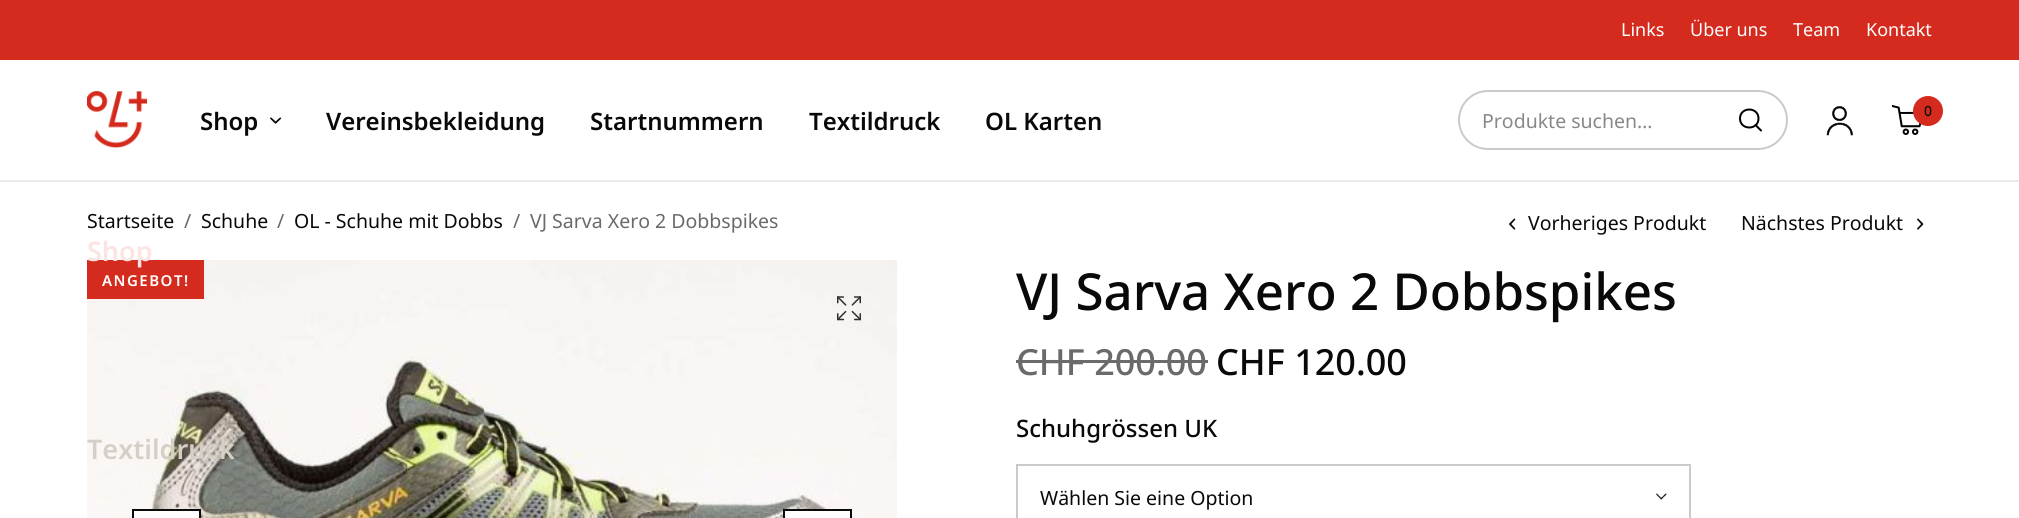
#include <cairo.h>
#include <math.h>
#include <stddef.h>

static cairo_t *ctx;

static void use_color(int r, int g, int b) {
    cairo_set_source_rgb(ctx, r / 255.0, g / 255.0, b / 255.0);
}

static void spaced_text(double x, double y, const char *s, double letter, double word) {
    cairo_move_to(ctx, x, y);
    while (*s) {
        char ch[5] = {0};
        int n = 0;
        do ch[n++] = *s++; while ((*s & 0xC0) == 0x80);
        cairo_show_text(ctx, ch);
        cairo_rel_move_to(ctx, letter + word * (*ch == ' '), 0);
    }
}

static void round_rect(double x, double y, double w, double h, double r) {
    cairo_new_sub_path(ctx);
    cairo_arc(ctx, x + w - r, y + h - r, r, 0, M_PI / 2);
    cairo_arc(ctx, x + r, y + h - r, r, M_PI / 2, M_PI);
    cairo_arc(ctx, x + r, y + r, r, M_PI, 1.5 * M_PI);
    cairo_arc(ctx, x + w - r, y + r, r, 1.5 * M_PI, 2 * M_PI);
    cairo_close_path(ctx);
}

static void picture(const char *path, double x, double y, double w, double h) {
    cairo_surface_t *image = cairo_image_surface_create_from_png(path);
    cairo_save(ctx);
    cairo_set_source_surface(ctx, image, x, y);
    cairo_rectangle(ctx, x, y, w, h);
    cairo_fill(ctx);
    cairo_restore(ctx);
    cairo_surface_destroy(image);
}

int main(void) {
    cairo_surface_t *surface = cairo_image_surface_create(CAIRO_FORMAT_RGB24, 2019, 518);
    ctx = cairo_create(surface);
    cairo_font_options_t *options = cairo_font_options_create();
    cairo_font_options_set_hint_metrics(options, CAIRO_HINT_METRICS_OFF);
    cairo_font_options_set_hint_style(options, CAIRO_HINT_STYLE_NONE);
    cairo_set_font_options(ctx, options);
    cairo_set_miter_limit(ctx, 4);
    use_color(255, 255, 255);
    cairo_paint(ctx);
    use_color(213, 43, 30);
    cairo_rectangle(ctx, 0, 0, 2019, 60);
    cairo_fill(ctx);
    cairo_select_font_face(ctx, "Noto Sans", CAIRO_FONT_SLANT_NORMAL, CAIRO_FONT_WEIGHT_NORMAL);
    cairo_set_font_size(ctx, 18);
    use_color(255, 255, 255);
    cairo_move_to(ctx, 1621, 36);
    cairo_show_text(ctx, "Links");
    cairo_move_to(ctx, 1690, 36);
    cairo_show_text(ctx, "Über uns");
    cairo_move_to(ctx, 1793, 36);
    cairo_show_text(ctx, "Team");
    cairo_move_to(ctx, 1866, 36);
    cairo_show_text(ctx, "Kontakt");
    use_color(235, 235, 235);
    cairo_rectangle(ctx, 0, 180, 2019, 2);
    cairo_fill(ctx);
    picture("img1.png", 87, 91, 60, 58);
    cairo_select_font_face(ctx, "Noto Sans SemiBold", CAIRO_FONT_SLANT_NORMAL, CAIRO_FONT_WEIGHT_NORMAL);
    cairo_set_font_size(ctx, 24);
    use_color(9, 9, 9);
    cairo_move_to(ctx, 200, 130);
    cairo_show_text(ctx, "Shop");
    picture("img2.png", 270, 117, 12, 7);
    cairo_move_to(ctx, 326, 130);
    cairo_show_text(ctx, "Vereinsbekleidung");
    cairo_move_to(ctx, 590, 130);
    cairo_show_text(ctx, "Startnummern");
    cairo_move_to(ctx, 809, 130);
    cairo_show_text(ctx, "Textildruck");
    cairo_move_to(ctx, 985, 130);
    cairo_show_text(ctx, "OL Karten");
    picture("img3.png", 1826, 106, 27, 30);
    picture("img4.png", 1892, 105, 30, 30);
    use_color(213, 43, 30);
    cairo_arc(ctx, 1928, 111, 15, 0, 2 * M_PI);
    cairo_fill(ctx);
    cairo_select_font_face(ctx, "Noto Sans Medium", CAIRO_FONT_SLANT_NORMAL, CAIRO_FONT_WEIGHT_NORMAL);
    cairo_set_font_size(ctx, 14);
    use_color(9, 9, 9);
    cairo_move_to(ctx, 1924, 116);
    cairo_show_text(ctx, "0");
    round_rect(1459, 91, 328, 58, 29);
    use_color(202, 202, 202);
    cairo_stroke(ctx);
    cairo_select_font_face(ctx, "Noto Sans", CAIRO_FONT_SLANT_NORMAL, CAIRO_FONT_WEIGHT_NORMAL);
    cairo_set_font_size(ctx, 19.5);
    use_color(136, 136, 136);
    cairo_move_to(ctx, 1482, 128);
    cairo_show_text(ctx, "Produkte suchen…");
    cairo_new_path(ctx);
    cairo_move_to(ctx, 1755.5, 125);
    cairo_line_to(ctx, 1761, 130.5);
    cairo_move_to(ctx, 1758.5, 118.5);
    cairo_curve_to(ctx, 1758.5, 130.5, 1740, 130.5, 1740, 118.5);
    cairo_curve_to(ctx, 1740, 106.5, 1758.5, 106.5, 1758.5, 118.5);
    cairo_close_path(ctx);
    use_color(0, 0, 0);
    cairo_set_line_cap(ctx, CAIRO_LINE_CAP_ROUND);
    cairo_set_line_join(ctx, CAIRO_LINE_JOIN_ROUND);
    cairo_stroke(ctx);
    use_color(9, 9, 9);
    cairo_move_to(ctx, 87, 228);
    cairo_show_text(ctx, "Startseite");
    use_color(106, 106, 106);
    cairo_move_to(ctx, 184, 228);
    cairo_show_text(ctx, "/");
    use_color(9, 9, 9);
    cairo_move_to(ctx, 201, 228);
    cairo_show_text(ctx, "Schuhe");
    use_color(106, 106, 106);
    cairo_move_to(ctx, 277, 228);
    cairo_show_text(ctx, "/");
    use_color(9, 9, 9);
    cairo_move_to(ctx, 294, 228);
    cairo_show_text(ctx, "OL - Schuhe mit Dobbs");
    use_color(106, 106, 106);
    cairo_move_to(ctx, 513, 228);
    cairo_show_text(ctx, "/");
    cairo_move_to(ctx, 530, 228);
    cairo_show_text(ctx, "VJ Sarva Xero 2 Dobbspikes");
    picture("img5.png", 1509, 218, 7, 12);
    use_color(9, 9, 9);
    cairo_move_to(ctx, 1528, 230);
    cairo_show_text(ctx, "Vorheriges Produkt");
    cairo_move_to(ctx, 1741, 230);
    cairo_show_text(ctx, "Nächstes Produkt");
    picture("img6.png", 1917, 218, 7, 12);
    picture("img7.png", 87, 260, 810, 258);
    picture("img8.png", 837, 296, 24, 25);
    use_color(255, 255, 255);
    cairo_rectangle(ctx, 133, 510, 67, 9);
    cairo_fill_preserve(ctx);
    use_color(9, 9, 9);
    cairo_set_line_cap(ctx, CAIRO_LINE_CAP_BUTT);
    cairo_set_line_join(ctx, CAIRO_LINE_JOIN_MITER);
    cairo_stroke(ctx);
    use_color(255, 255, 255);
    cairo_rectangle(ctx, 784, 510, 67, 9);
    cairo_fill_preserve(ctx);
    use_color(9, 9, 9);
    cairo_stroke(ctx);
    use_color(213, 43, 30);
    cairo_rectangle(ctx, 87, 260, 117, 39);
    cairo_fill(ctx);
    cairo_select_font_face(ctx, "Noto Sans SemiBold", CAIRO_FONT_SLANT_NORMAL, CAIRO_FONT_WEIGHT_NORMAL);
    cairo_set_font_size(ctx, 15);
    use_color(255, 255, 255);
    spaced_text(102, 286, "ANGEBOT!", 1.5, 0);
    cairo_select_font_face(ctx, "Noto Sans Medium", CAIRO_FONT_SLANT_NORMAL, CAIRO_FONT_WEIGHT_NORMAL);
    cairo_set_font_size(ctx, 51);
    use_color(9, 9, 9);
    cairo_move_to(ctx, 1016, 310);
    cairo_show_text(ctx, "VJ Sarva Xero 2 Dobbspikes");
    cairo_set_font_size(ctx, 36);
    use_color(106, 106, 106);
    cairo_move_to(ctx, 1016, 375);
    cairo_show_text(ctx, "CHF 200.00");
    use_color(107, 107, 107);
    cairo_rectangle(ctx, 1016, 360, 192, 3);
    cairo_fill(ctx);
    use_color(9, 9, 9);
    cairo_move_to(ctx, 1216, 375);
    cairo_show_text(ctx, "CHF 120.00");
    cairo_set_font_size(ctx, 24);
    cairo_move_to(ctx, 1016, 437);
    cairo_show_text(ctx, "Schuhgrössen UK");
    picture("img9.png", 1656, 493, 11, 7);
    cairo_rectangle(ctx, 1017, 465, 673, 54);
    use_color(202, 202, 202);
    cairo_stroke(ctx);
    cairo_select_font_face(ctx, "Noto Sans", CAIRO_FONT_SLANT_NORMAL, CAIRO_FONT_WEIGHT_NORMAL);
    cairo_set_font_size(ctx, 19.5);
    use_color(9, 9, 9);
    cairo_move_to(ctx, 1040, 505);
    cairo_show_text(ctx, "Wählen Sie eine Option");
    cairo_select_font_face(ctx, "Noto Sans SemiBold", CAIRO_FONT_SLANT_NORMAL, CAIRO_FONT_WEIGHT_NORMAL);
    cairo_set_font_size(ctx, 27);
    use_color(250, 229, 227);
    cairo_move_to(ctx, 87, 261);
    cairo_show_text(ctx, "Shop");
    use_color(212, 208, 200);
    cairo_move_to(ctx, 87, 459);
    cairo_show_text(ctx, "Textildruck");
    cairo_surface_write_to_png(surface, "result.png");
    cairo_font_options_destroy(options);
    cairo_destroy(ctx);
    cairo_surface_destroy(surface);
    return 0;
}
